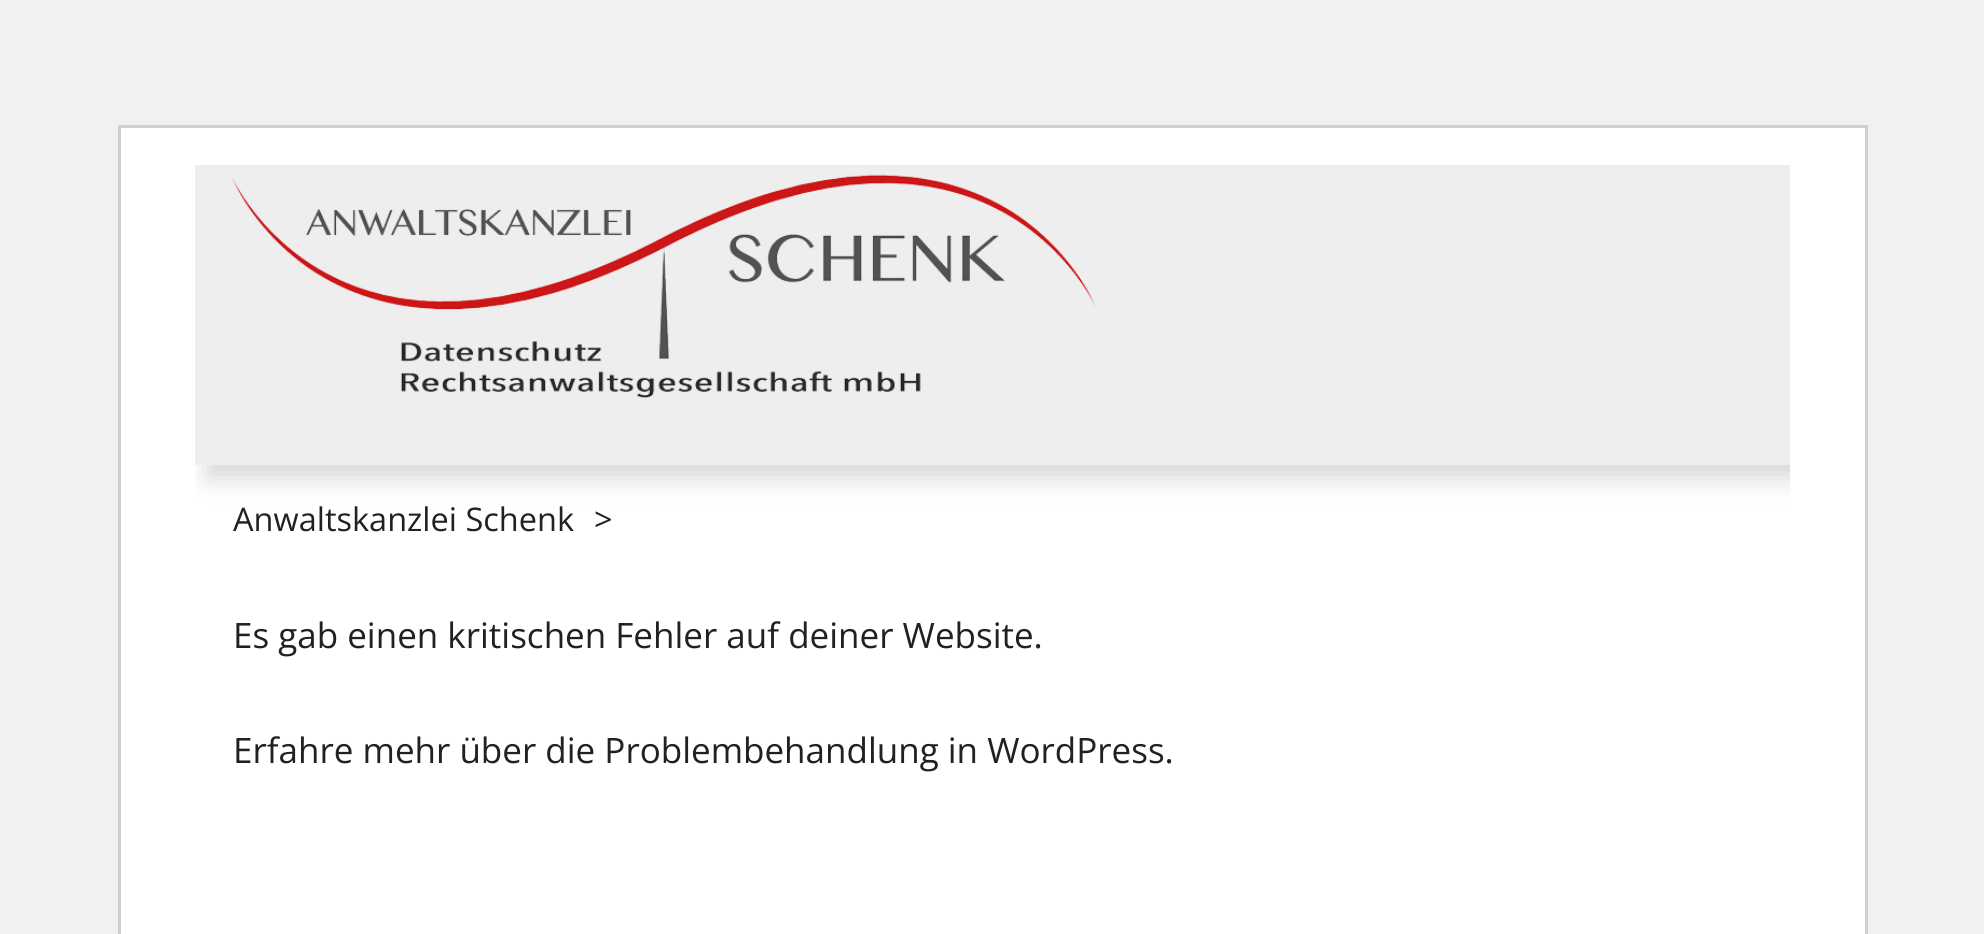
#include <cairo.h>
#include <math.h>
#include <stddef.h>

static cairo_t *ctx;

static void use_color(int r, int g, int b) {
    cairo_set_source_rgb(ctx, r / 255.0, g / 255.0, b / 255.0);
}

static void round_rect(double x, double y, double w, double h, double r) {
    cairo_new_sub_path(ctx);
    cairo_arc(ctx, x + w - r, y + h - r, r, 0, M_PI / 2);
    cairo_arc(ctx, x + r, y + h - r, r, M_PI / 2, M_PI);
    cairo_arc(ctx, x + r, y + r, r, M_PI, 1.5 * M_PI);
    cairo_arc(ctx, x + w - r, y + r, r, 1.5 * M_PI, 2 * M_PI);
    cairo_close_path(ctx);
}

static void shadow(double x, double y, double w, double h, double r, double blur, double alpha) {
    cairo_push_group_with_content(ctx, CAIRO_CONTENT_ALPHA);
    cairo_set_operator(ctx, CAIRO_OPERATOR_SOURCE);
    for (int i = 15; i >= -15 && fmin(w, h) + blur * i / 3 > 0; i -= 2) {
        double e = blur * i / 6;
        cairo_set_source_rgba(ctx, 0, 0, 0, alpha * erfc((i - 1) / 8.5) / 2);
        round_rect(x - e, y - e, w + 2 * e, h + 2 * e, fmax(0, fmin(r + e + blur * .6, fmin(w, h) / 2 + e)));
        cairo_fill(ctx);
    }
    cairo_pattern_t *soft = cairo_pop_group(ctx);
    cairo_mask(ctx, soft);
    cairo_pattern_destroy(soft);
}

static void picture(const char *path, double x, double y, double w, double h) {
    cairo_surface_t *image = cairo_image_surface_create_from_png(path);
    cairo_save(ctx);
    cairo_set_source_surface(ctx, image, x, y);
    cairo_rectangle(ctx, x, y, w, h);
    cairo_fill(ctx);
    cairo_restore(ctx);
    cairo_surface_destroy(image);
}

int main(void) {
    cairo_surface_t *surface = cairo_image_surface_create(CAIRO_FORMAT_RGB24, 1984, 934);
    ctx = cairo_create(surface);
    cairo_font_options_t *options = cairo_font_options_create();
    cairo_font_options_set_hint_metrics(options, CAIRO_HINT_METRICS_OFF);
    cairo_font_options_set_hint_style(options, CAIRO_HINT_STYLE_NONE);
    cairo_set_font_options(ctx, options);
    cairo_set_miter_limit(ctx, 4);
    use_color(241, 241, 241);
    cairo_paint(ctx);
    use_color(255, 255, 255);
    cairo_rectangle(ctx, 119.5, 126.5, 1747, 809);
    cairo_fill_preserve(ctx);
    use_color(204, 208, 212);
    cairo_set_line_width(ctx, 3);
    cairo_stroke(ctx);
    cairo_save(ctx);
    cairo_rectangle(ctx, 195, 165, 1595, 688);
    cairo_clip(ctx);
    use_color(202, 202, 202);
    shadow(208, 178, 1595, 300, 0, 12.5, 0.77);
    cairo_restore(ctx);
    use_color(238, 238, 238);
    cairo_rectangle(ctx, 195, 165, 1595, 300);
    cairo_fill(ctx);
    picture("img1.png", 232, 174, 863, 225);
    cairo_select_font_face(ctx, "Open Sans", CAIRO_FONT_SLANT_NORMAL, CAIRO_FONT_WEIGHT_NORMAL);
    cairo_set_font_size(ctx, 32.5);
    use_color(33, 33, 33);
    cairo_move_to(ctx, 233, 531);
    cairo_show_text(ctx, "Anwaltskanzlei Schenk");
    cairo_move_to(ctx, 594, 531);
    cairo_show_text(ctx, ">");
    cairo_set_font_size(ctx, 35);
    cairo_move_to(ctx, 233, 648);
    cairo_show_text(ctx, "Es gab einen kritischen Fehler auf deiner Website.");
    cairo_move_to(ctx, 233, 763);
    cairo_show_text(ctx, "Erfahre mehr über die Problembehandlung in WordPress.");
    cairo_surface_write_to_png(surface, "result.png");
    cairo_font_options_destroy(options);
    cairo_destroy(ctx);
    cairo_surface_destroy(surface);
    return 0;
}
